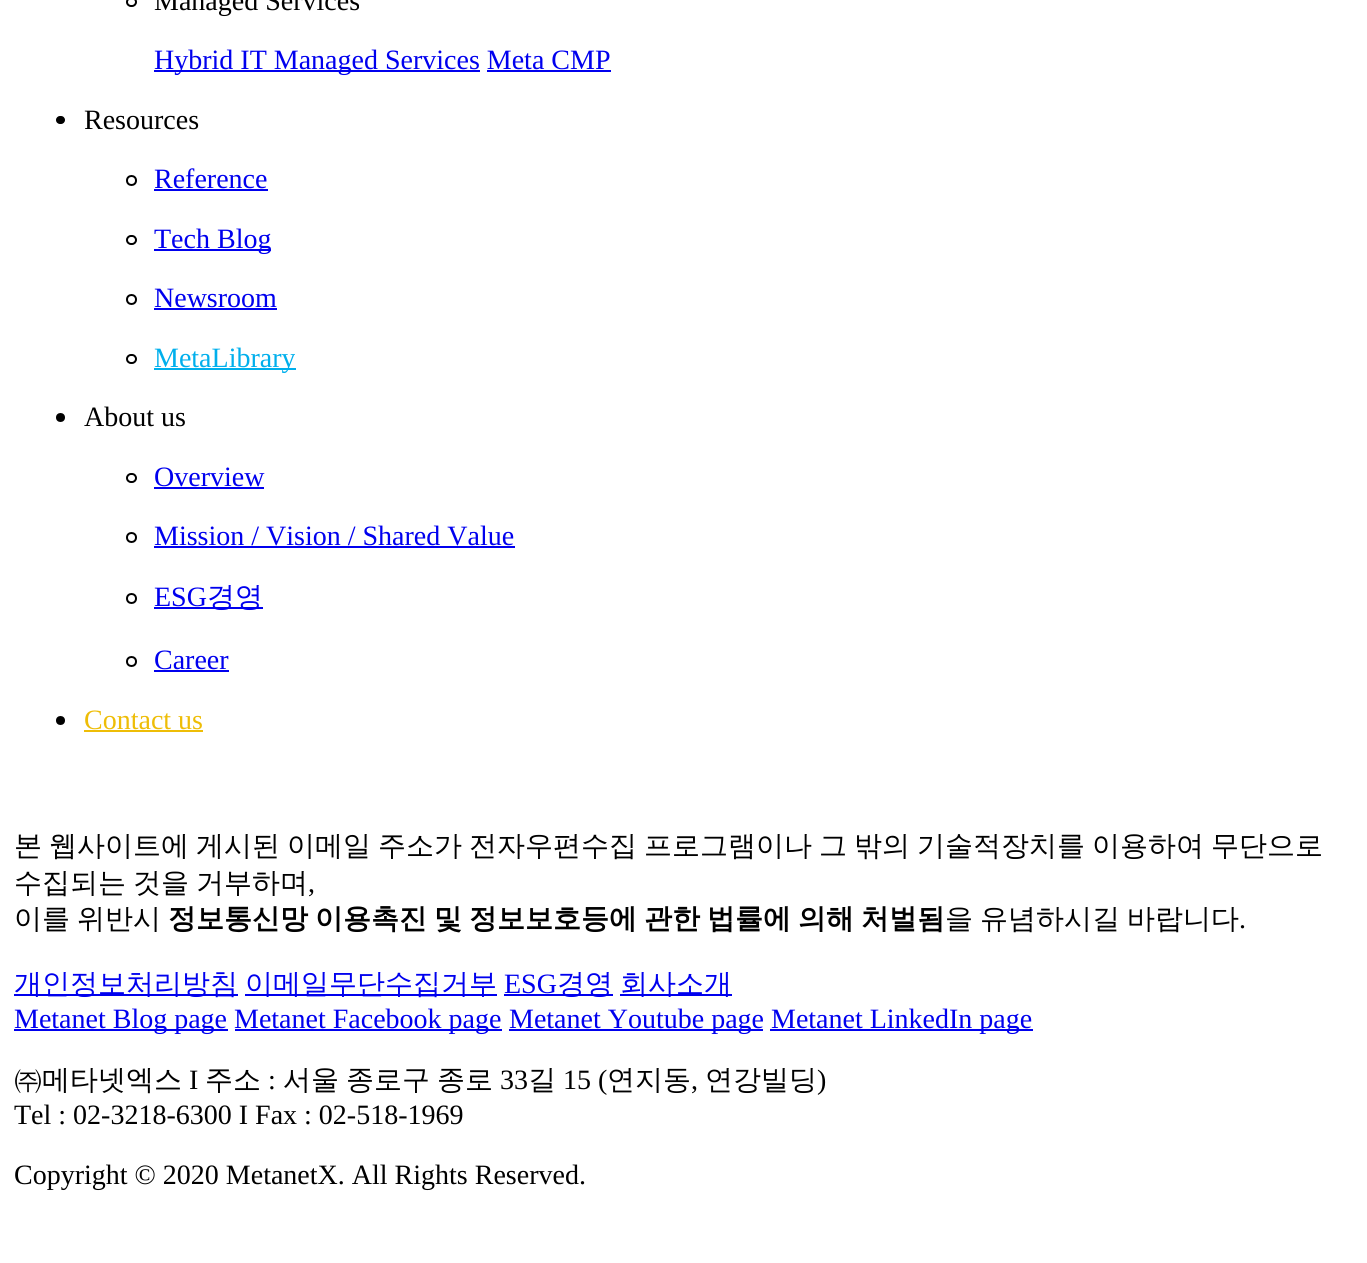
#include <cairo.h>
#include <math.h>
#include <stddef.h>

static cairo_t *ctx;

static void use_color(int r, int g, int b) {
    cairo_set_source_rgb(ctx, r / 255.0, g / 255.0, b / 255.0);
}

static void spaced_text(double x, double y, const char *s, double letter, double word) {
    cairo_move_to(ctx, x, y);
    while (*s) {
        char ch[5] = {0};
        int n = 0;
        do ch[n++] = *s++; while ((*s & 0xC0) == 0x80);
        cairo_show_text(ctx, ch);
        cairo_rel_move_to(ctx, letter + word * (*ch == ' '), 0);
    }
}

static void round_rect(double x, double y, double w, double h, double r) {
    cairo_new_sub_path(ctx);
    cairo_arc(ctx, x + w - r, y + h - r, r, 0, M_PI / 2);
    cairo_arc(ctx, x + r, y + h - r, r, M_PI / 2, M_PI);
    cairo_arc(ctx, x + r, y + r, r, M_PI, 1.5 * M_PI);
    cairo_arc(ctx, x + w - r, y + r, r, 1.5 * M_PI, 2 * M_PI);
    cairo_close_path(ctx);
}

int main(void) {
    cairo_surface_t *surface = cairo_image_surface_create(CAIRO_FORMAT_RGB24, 1367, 1263);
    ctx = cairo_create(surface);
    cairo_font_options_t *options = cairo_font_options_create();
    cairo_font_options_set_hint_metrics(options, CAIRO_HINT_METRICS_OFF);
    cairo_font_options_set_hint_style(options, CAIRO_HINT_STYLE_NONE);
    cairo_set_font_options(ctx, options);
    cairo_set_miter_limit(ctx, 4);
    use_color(255, 255, 255);
    cairo_paint(ctx);
    round_rect(127, -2, 9, 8, 4);
    use_color(0, 0, 0);
    cairo_stroke(ctx);
    cairo_select_font_face(ctx, "Liberation Serif", CAIRO_FONT_SLANT_NORMAL, CAIRO_FONT_WEIGHT_NORMAL);
    cairo_set_font_size(ctx, 28);
    cairo_move_to(ctx, 154, 10);
    cairo_show_text(ctx, "Managed Services");
    use_color(0, 0, 238);
    cairo_rectangle(ctx, 154, 70, 326, 2);
    cairo_fill(ctx);
    cairo_move_to(ctx, 154, 69);
    cairo_show_text(ctx, "Hybrid IT Managed Services Meta CMP");
    cairo_rectangle(ctx, 487, 70, 124, 2);
    cairo_fill(ctx);
    use_color(0, 0, 0);
    round_rect(56, 116, 9, 8, 4);
    cairo_fill(ctx);
    cairo_move_to(ctx, 84, 129);
    cairo_show_text(ctx, "Resources");
    cairo_new_path(ctx);
    cairo_arc(ctx, 131.5, 180.5, 4.5, 0, 2 * M_PI);
    cairo_stroke(ctx);
    use_color(0, 0, 238);
    cairo_move_to(ctx, 154, 188);
    cairo_show_text(ctx, "Reference");
    cairo_rectangle(ctx, 154, 189, 114, 2);
    cairo_fill(ctx);
    round_rect(127, 236, 9, 8, 4);
    use_color(0, 0, 0);
    cairo_stroke(ctx);
    use_color(0, 0, 238);
    cairo_rectangle(ctx, 154, 249, 117, 2);
    cairo_fill(ctx);
    cairo_move_to(ctx, 154, 248);
    cairo_show_text(ctx, "Tech Blog");
    cairo_new_path(ctx);
    cairo_arc(ctx, 131.5, 299.5, 4.5, 0, 2 * M_PI);
    use_color(0, 0, 0);
    cairo_stroke(ctx);
    use_color(0, 0, 238);
    cairo_move_to(ctx, 154, 307);
    cairo_show_text(ctx, "Newsroom");
    cairo_rectangle(ctx, 154, 308, 123, 2);
    cairo_fill(ctx);
    round_rect(127, 355, 9, 8, 4);
    use_color(0, 0, 0);
    cairo_stroke(ctx);
    use_color(0, 175, 236);
    cairo_rectangle(ctx, 154, 368, 142, 2);
    cairo_fill(ctx);
    cairo_move_to(ctx, 154, 367);
    cairo_show_text(ctx, "MetaLibrary");
    use_color(0, 0, 0);
    cairo_new_path(ctx);
    cairo_arc(ctx, 60.5, 417.5, 4.5, 0, 2 * M_PI);
    cairo_fill(ctx);
    cairo_move_to(ctx, 84, 426);
    cairo_show_text(ctx, "About us");
    round_rect(127, 474, 9, 8, 4);
    cairo_stroke(ctx);
    use_color(0, 0, 238);
    cairo_move_to(ctx, 154, 486);
    cairo_show_text(ctx, "Overview");
    cairo_rectangle(ctx, 154, 487, 110, 2);
    cairo_fill(ctx);
    cairo_arc(ctx, 131.5, 537.5, 4.5, 0, 2 * M_PI);
    use_color(0, 0, 0);
    cairo_stroke(ctx);
    use_color(0, 0, 238);
    cairo_move_to(ctx, 154, 545);
    cairo_show_text(ctx, "Mission / Vision / Shared Value");
    cairo_rectangle(ctx, 154, 546, 361, 2);
    cairo_fill(ctx);
    cairo_arc(ctx, 131.5, 598.5, 4.5, 0, 2 * M_PI);
    use_color(0, 0, 0);
    cairo_stroke(ctx);
    use_color(0, 0, 238);
    cairo_move_to(ctx, 154, 606);
    cairo_show_text(ctx, "ESG");
    cairo_rectangle(ctx, 154, 607, 109, 2);
    cairo_fill(ctx);
    cairo_select_font_face(ctx, "WenQuanYi Zen Hei Medium", CAIRO_FONT_SLANT_NORMAL, CAIRO_FONT_WEIGHT_NORMAL);
    cairo_move_to(ctx, 207, 606);
    cairo_show_text(ctx, "경영");
    cairo_new_path(ctx);
    cairo_arc(ctx, 131.5, 661.5, 4.5, 0, 2 * M_PI);
    use_color(0, 0, 0);
    cairo_stroke(ctx);
    cairo_select_font_face(ctx, "Liberation Serif", CAIRO_FONT_SLANT_NORMAL, CAIRO_FONT_WEIGHT_NORMAL);
    use_color(0, 0, 238);
    cairo_move_to(ctx, 154, 669);
    cairo_show_text(ctx, "Career");
    cairo_rectangle(ctx, 154, 670, 75, 2);
    cairo_fill(ctx);
    use_color(0, 0, 0);
    cairo_arc(ctx, 60.5, 720.5, 4.5, 0, 2 * M_PI);
    cairo_fill(ctx);
    use_color(238, 189, 7);
    cairo_move_to(ctx, 84, 729);
    cairo_show_text(ctx, "Contact us");
    cairo_rectangle(ctx, 84, 730, 119, 2);
    cairo_fill(ctx);
    cairo_select_font_face(ctx, "WenQuanYi Zen Hei Medium", CAIRO_FONT_SLANT_NORMAL, CAIRO_FONT_WEIGHT_NORMAL);
    use_color(0, 0, 0);
    spaced_text(14, 855, "본 웹사이트에 게시된 이메일 주소가 전자우편수집 프로그램이나 그 밖의 기술적장치를 이용하여 무단으로", 0, -1.4);
    spaced_text(14, 892, "수집되는 것을 거부하며", 0, -1.4);
    cairo_select_font_face(ctx, "Liberation Serif", CAIRO_FONT_SLANT_NORMAL, CAIRO_FONT_WEIGHT_NORMAL);
    cairo_move_to(ctx, 308, 892);
    cairo_show_text(ctx, ",");
    cairo_select_font_face(ctx, "WenQuanYi Zen Hei Medium", CAIRO_FONT_SLANT_NORMAL, CAIRO_FONT_WEIGHT_NORMAL);
    spaced_text(14, 928, "이를 위반시", 0, -1.4);
    cairo_select_font_face(ctx, "WenQuanYi Zen Hei", CAIRO_FONT_SLANT_NORMAL, CAIRO_FONT_WEIGHT_BOLD);
    spaced_text(168, 928, "정보통신망 이용촉진 및 정보보호등에 관한 법률에 의해 처벌됨", 0, -1.4);
    cairo_select_font_face(ctx, "WenQuanYi Zen Hei Medium", CAIRO_FONT_SLANT_NORMAL, CAIRO_FONT_WEIGHT_NORMAL);
    spaced_text(945, 928, "을 유념하시길 바랍니다", 0, -1.4);
    cairo_select_font_face(ctx, "Liberation Serif", CAIRO_FONT_SLANT_NORMAL, CAIRO_FONT_WEIGHT_NORMAL);
    cairo_move_to(ctx, 1239, 928);
    cairo_show_text(ctx, ".");
    use_color(0, 0, 238);
    cairo_rectangle(ctx, 14, 994, 224, 2);
    cairo_fill(ctx);
    cairo_select_font_face(ctx, "WenQuanYi Zen Hei Medium", CAIRO_FONT_SLANT_NORMAL, CAIRO_FONT_WEIGHT_NORMAL);
    cairo_move_to(ctx, 14, 993);
    cairo_show_text(ctx, "개인정보처리방침");
    cairo_rectangle(ctx, 245, 994, 252, 2);
    cairo_fill(ctx);
    cairo_move_to(ctx, 245, 993);
    cairo_show_text(ctx, "이메일무단수집거부");
    cairo_select_font_face(ctx, "Liberation Serif", CAIRO_FONT_SLANT_NORMAL, CAIRO_FONT_WEIGHT_NORMAL);
    cairo_move_to(ctx, 504, 993);
    cairo_show_text(ctx, "ESG");
    cairo_rectangle(ctx, 504, 994, 109, 2);
    cairo_fill(ctx);
    cairo_select_font_face(ctx, "WenQuanYi Zen Hei Medium", CAIRO_FONT_SLANT_NORMAL, CAIRO_FONT_WEIGHT_NORMAL);
    cairo_move_to(ctx, 557, 993);
    cairo_show_text(ctx, "경영");
    cairo_rectangle(ctx, 620, 994, 112, 2);
    cairo_fill(ctx);
    cairo_move_to(ctx, 620, 993);
    cairo_show_text(ctx, "회사소개");
    cairo_rectangle(ctx, 14, 1029, 214, 2);
    cairo_fill(ctx);
    cairo_select_font_face(ctx, "Liberation Serif", CAIRO_FONT_SLANT_NORMAL, CAIRO_FONT_WEIGHT_NORMAL);
    cairo_move_to(ctx, 14, 1028);
    cairo_show_text(ctx, "Metanet Blog page");
    cairo_rectangle(ctx, 235, 1029, 267, 2);
    cairo_fill(ctx);
    cairo_move_to(ctx, 234, 1028);
    cairo_show_text(ctx, "Metanet Facebook page");
    cairo_rectangle(ctx, 509, 1029, 254, 2);
    cairo_fill(ctx);
    cairo_move_to(ctx, 509, 1028);
    cairo_show_text(ctx, "Metanet Youtube page");
    cairo_rectangle(ctx, 770, 1029, 263, 2);
    cairo_fill(ctx);
    cairo_move_to(ctx, 771, 1028);
    cairo_show_text(ctx, "Metanet LinkedIn page");
    cairo_select_font_face(ctx, "WenQuanYi Zen Hei Medium", CAIRO_FONT_SLANT_NORMAL, CAIRO_FONT_WEIGHT_NORMAL);
    use_color(0, 0, 0);
    cairo_move_to(ctx, 14, 1089);
    cairo_show_text(ctx, "㈜메타넷엑스");
    cairo_select_font_face(ctx, "Liberation Serif", CAIRO_FONT_SLANT_NORMAL, CAIRO_FONT_WEIGHT_NORMAL);
    cairo_move_to(ctx, 189, 1089);
    cairo_show_text(ctx, "I");
    cairo_select_font_face(ctx, "WenQuanYi Zen Hei Medium", CAIRO_FONT_SLANT_NORMAL, CAIRO_FONT_WEIGHT_NORMAL);
    cairo_move_to(ctx, 205, 1089);
    cairo_show_text(ctx, "주소");
    cairo_select_font_face(ctx, "Liberation Serif", CAIRO_FONT_SLANT_NORMAL, CAIRO_FONT_WEIGHT_NORMAL);
    cairo_move_to(ctx, 268, 1089);
    cairo_show_text(ctx, ":");
    cairo_select_font_face(ctx, "WenQuanYi Zen Hei Medium", CAIRO_FONT_SLANT_NORMAL, CAIRO_FONT_WEIGHT_NORMAL);
    cairo_move_to(ctx, 283, 1089);
    cairo_show_text(ctx, "서울");
    cairo_move_to(ctx, 346, 1089);
    cairo_show_text(ctx, "종로구");
    cairo_move_to(ctx, 437, 1089);
    cairo_show_text(ctx, "종로");
    cairo_select_font_face(ctx, "Liberation Serif", CAIRO_FONT_SLANT_NORMAL, CAIRO_FONT_WEIGHT_NORMAL);
    cairo_move_to(ctx, 500, 1089);
    cairo_show_text(ctx, "33");
    cairo_select_font_face(ctx, "WenQuanYi Zen Hei Medium", CAIRO_FONT_SLANT_NORMAL, CAIRO_FONT_WEIGHT_NORMAL);
    cairo_move_to(ctx, 528, 1089);
    cairo_show_text(ctx, "길");
    cairo_select_font_face(ctx, "Liberation Serif", CAIRO_FONT_SLANT_NORMAL, CAIRO_FONT_WEIGHT_NORMAL);
    cairo_move_to(ctx, 563, 1089);
    cairo_show_text(ctx, "15 (");
    cairo_select_font_face(ctx, "WenQuanYi Zen Hei Medium", CAIRO_FONT_SLANT_NORMAL, CAIRO_FONT_WEIGHT_NORMAL);
    cairo_move_to(ctx, 607, 1089);
    cairo_show_text(ctx, "연지동");
    cairo_select_font_face(ctx, "Liberation Serif", CAIRO_FONT_SLANT_NORMAL, CAIRO_FONT_WEIGHT_NORMAL);
    cairo_move_to(ctx, 691, 1089);
    cairo_show_text(ctx, ",");
    cairo_select_font_face(ctx, "WenQuanYi Zen Hei Medium", CAIRO_FONT_SLANT_NORMAL, CAIRO_FONT_WEIGHT_NORMAL);
    cairo_move_to(ctx, 705, 1089);
    cairo_show_text(ctx, "연강빌딩");
    cairo_select_font_face(ctx, "Liberation Serif", CAIRO_FONT_SLANT_NORMAL, CAIRO_FONT_WEIGHT_NORMAL);
    cairo_move_to(ctx, 817, 1089);
    cairo_show_text(ctx, ")");
    cairo_move_to(ctx, 14, 1124);
    cairo_show_text(ctx, "Tel : 02-3218-6300 I Fax : 02-518-1969");
    cairo_move_to(ctx, 14, 1184);
    cairo_show_text(ctx, "Copyright © 2020 MetanetX. All Rights Reserved.");
    cairo_surface_write_to_png(surface, "result.png");
    cairo_font_options_destroy(options);
    cairo_destroy(ctx);
    cairo_surface_destroy(surface);
    return 0;
}
